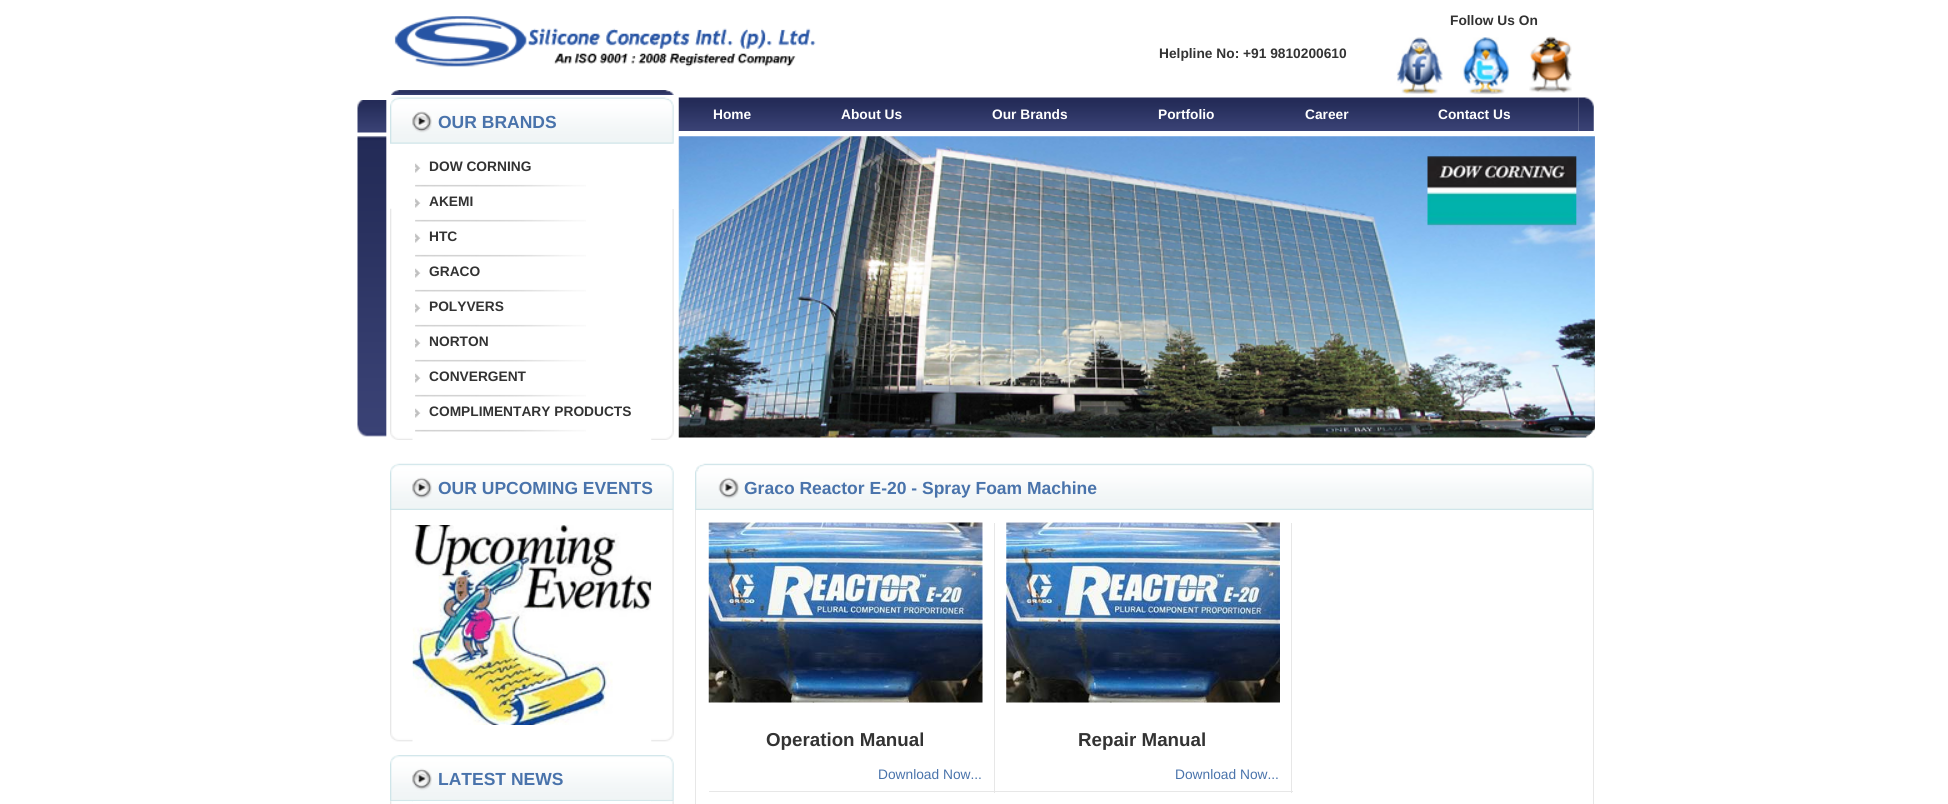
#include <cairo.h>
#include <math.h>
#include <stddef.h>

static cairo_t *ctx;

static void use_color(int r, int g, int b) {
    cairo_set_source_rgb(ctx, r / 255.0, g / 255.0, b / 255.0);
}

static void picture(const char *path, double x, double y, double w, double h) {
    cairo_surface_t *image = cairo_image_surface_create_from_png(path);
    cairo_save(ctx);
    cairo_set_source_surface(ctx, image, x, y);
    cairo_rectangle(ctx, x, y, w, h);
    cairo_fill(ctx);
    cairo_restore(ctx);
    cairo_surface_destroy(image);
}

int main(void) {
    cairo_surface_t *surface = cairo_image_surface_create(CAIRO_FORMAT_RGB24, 1948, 804);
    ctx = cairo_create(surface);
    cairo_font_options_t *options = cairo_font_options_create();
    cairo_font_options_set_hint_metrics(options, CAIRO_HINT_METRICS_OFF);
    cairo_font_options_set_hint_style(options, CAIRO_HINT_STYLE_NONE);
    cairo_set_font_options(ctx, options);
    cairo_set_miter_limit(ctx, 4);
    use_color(255, 255, 255);
    cairo_paint(ctx);
    picture("img1.png", 391, 90, 283, 5);
    picture("img2.png", 394, 16, 422, 51);
    picture("img3.png", 1396, 37, 47, 57);
    cairo_select_font_face(ctx, "Liberation Sans", CAIRO_FONT_SLANT_NORMAL, CAIRO_FONT_WEIGHT_BOLD);
    cairo_set_font_size(ctx, 13.75);
    use_color(51, 51, 51);
    cairo_move_to(ctx, 1450, 25);
    cairo_show_text(ctx, "Follow Us On");
    picture("img4.png", 1529, 36, 43, 57);
    cairo_move_to(ctx, 1159, 58);
    cairo_show_text(ctx, "Helpline No: +91 9810200610");
    picture("img5.png", 1460, 37, 50, 58);
    picture("img6.png", 357, 100, 30, 337);
    picture("img7.png", 390, 97, 284, 47);
    cairo_set_font_size(ctx, 17.5);
    use_color(73, 115, 171);
    cairo_move_to(ctx, 438, 128);
    cairo_show_text(ctx, "OUR BRANDS");
    picture("img8.png", 390, 208, 23, 232);
    picture("img9.png", 415, 163, 171, 24);
    cairo_set_font_size(ctx, 13.75);
    use_color(51, 51, 51);
    cairo_move_to(ctx, 429, 171);
    cairo_show_text(ctx, "DOW CORNING");
    picture("img9.png", 415, 198, 171, 24);
    cairo_move_to(ctx, 429, 206);
    cairo_show_text(ctx, "AKEMI");
    picture("img9.png", 415, 233, 171, 24);
    cairo_move_to(ctx, 429, 241);
    cairo_show_text(ctx, "HTC");
    picture("img9.png", 415, 268, 171, 24);
    cairo_move_to(ctx, 429, 276);
    cairo_show_text(ctx, "GRACO");
    picture("img9.png", 415, 303, 171, 24);
    cairo_move_to(ctx, 429, 311);
    cairo_show_text(ctx, "POLYVERS");
    picture("img9.png", 415, 338, 171, 24);
    cairo_move_to(ctx, 429, 346);
    cairo_show_text(ctx, "NORTON");
    picture("img9.png", 415, 373, 171, 24);
    cairo_move_to(ctx, 429, 381);
    cairo_show_text(ctx, "CONVERGENT");
    picture("img9.png", 415, 408, 171, 24);
    cairo_move_to(ctx, 429, 416);
    cairo_show_text(ctx, "COMPLIMENTARY PRODUCTS");
    picture("img10.png", 651, 209, 23, 231);
    picture("img11.png", 678, 97, 901, 35);
    use_color(255, 255, 255);
    cairo_move_to(ctx, 713, 119);
    cairo_show_text(ctx, "Home");
    cairo_move_to(ctx, 841, 119);
    cairo_show_text(ctx, "About Us");
    cairo_move_to(ctx, 992, 119);
    cairo_show_text(ctx, "Our Brands");
    cairo_move_to(ctx, 1158, 119);
    cairo_show_text(ctx, "Portfolio");
    cairo_move_to(ctx, 1305, 119);
    cairo_show_text(ctx, "Career");
    cairo_move_to(ctx, 1438, 119);
    cairo_show_text(ctx, "Contact Us");
    picture("img12.png", 1578, 97, 16, 34);
    cairo_rectangle(ctx, 679, 131, 900, 1);
    cairo_fill(ctx);
    picture("img13.png", 678, 136, 917, 302);
    picture("img14.png", 390, 463, 284, 47);
    cairo_set_font_size(ctx, 17.5);
    use_color(73, 115, 171);
    cairo_move_to(ctx, 438, 494);
    cairo_show_text(ctx, "OUR UPCOMING EVENTS");
    picture("img15.png", 390, 510, 23, 232);
    picture("img17.png", 651, 510, 23, 232);
    picture("img16.png", 412, 525, 240, 200);
    picture("img18.png", 390, 755, 284, 47);
    cairo_move_to(ctx, 438, 785);
    cairo_show_text(ctx, "LATEST NEWS");
    picture("img19.png", 390, 801, 23, 3);
    use_color(255, 255, 255);
    cairo_rectangle(ctx, 413, 801, 238, 1);
    cairo_fill(ctx);
    picture("img20.png", 651, 801, 23, 3);
    picture("img21.png", 695, 463, 899, 47);
    use_color(73, 115, 171);
    cairo_move_to(ctx, 744, 494);
    cairo_show_text(ctx, "Graco Reactor E-20 - Spray Foam Machine");
    use_color(231, 231, 231);
    cairo_rectangle(ctx, 1593, 510, 1, 294);
    cairo_fill(ctx);
    cairo_rectangle(ctx, 695, 510, 1, 294);
    cairo_fill(ctx);
    cairo_rectangle(ctx, 994, 523, 1, 270);
    cairo_fill(ctx);
    cairo_rectangle(ctx, 709, 791, 286, 1);
    cairo_fill(ctx);
    picture("img22.png", 708, 522, 275, 181);
    cairo_set_font_size(ctx, 18.75);
    use_color(51, 51, 51);
    cairo_move_to(ctx, 766, 746);
    cairo_show_text(ctx, "Operation Manual");
    cairo_select_font_face(ctx, "Liberation Sans", CAIRO_FONT_SLANT_NORMAL, CAIRO_FONT_WEIGHT_NORMAL);
    cairo_set_font_size(ctx, 13.75);
    use_color(73, 115, 171);
    cairo_move_to(ctx, 878, 779);
    cairo_show_text(ctx, "Download Now...");
    use_color(231, 231, 231);
    cairo_rectangle(ctx, 1291, 523, 1, 270);
    cairo_fill(ctx);
    cairo_rectangle(ctx, 995, 791, 298, 1);
    cairo_fill(ctx);
    picture("img23.png", 1006, 522, 274, 181);
    cairo_select_font_face(ctx, "Liberation Sans", CAIRO_FONT_SLANT_NORMAL, CAIRO_FONT_WEIGHT_BOLD);
    cairo_set_font_size(ctx, 18.75);
    use_color(51, 51, 51);
    cairo_move_to(ctx, 1078, 746);
    cairo_show_text(ctx, "Repair Manual");
    cairo_select_font_face(ctx, "Liberation Sans", CAIRO_FONT_SLANT_NORMAL, CAIRO_FONT_WEIGHT_NORMAL);
    cairo_set_font_size(ctx, 13.75);
    use_color(73, 115, 171);
    cairo_move_to(ctx, 1175, 779);
    cairo_show_text(ctx, "Download Now...");
    cairo_surface_write_to_png(surface, "result.png");
    cairo_font_options_destroy(options);
    cairo_destroy(ctx);
    cairo_surface_destroy(surface);
    return 0;
}
